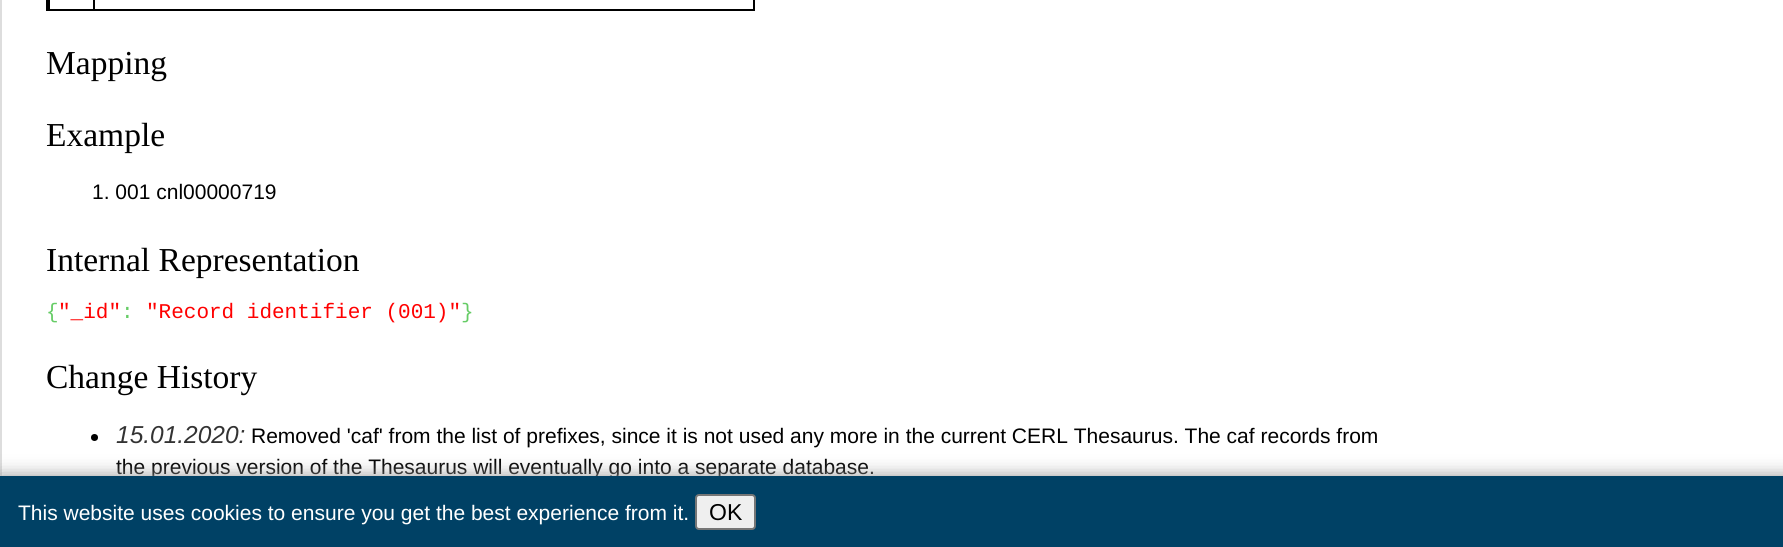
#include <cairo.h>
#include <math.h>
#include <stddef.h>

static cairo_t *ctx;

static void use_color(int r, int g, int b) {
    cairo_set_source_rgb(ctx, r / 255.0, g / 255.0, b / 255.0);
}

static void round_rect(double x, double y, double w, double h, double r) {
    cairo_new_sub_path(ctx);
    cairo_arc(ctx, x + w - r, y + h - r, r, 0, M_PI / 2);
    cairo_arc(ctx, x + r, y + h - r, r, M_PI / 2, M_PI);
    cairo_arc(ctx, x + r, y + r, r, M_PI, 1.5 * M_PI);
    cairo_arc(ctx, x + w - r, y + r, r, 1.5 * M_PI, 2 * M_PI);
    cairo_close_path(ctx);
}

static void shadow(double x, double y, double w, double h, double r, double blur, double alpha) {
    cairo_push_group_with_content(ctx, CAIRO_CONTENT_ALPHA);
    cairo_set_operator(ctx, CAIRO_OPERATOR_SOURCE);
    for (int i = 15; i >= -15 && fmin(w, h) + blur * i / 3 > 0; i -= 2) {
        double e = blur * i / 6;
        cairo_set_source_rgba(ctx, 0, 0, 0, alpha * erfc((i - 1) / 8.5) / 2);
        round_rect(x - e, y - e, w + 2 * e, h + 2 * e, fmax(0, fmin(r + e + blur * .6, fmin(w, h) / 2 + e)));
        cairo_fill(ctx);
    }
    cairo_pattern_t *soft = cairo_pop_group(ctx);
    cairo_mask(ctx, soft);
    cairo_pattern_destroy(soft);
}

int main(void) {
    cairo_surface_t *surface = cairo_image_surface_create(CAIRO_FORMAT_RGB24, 1783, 547);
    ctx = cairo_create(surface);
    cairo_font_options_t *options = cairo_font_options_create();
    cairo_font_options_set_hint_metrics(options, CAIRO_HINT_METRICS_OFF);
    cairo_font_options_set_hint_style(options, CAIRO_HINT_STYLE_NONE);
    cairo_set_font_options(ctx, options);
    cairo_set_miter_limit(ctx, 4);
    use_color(221, 221, 221);
    cairo_paint(ctx);
    use_color(255, 255, 255);
    cairo_rectangle(ctx, 2, 0, 1781, 476);
    cairo_fill(ctx);
    use_color(0, 0, 0);
    cairo_rectangle(ctx, 753, 0, 2, 11);
    cairo_fill(ctx);
    cairo_rectangle(ctx, 93, 9, 661, 2);
    cairo_fill(ctx);
    cairo_rectangle(ctx, 93, 0, 2, 11);
    cairo_fill(ctx);
    cairo_rectangle(ctx, 47, 9, 48, 2);
    cairo_fill(ctx);
    cairo_rectangle(ctx, 46, 0, 4, 11);
    cairo_fill(ctx);
    cairo_select_font_face(ctx, "Liberation Serif", CAIRO_FONT_SLANT_NORMAL, CAIRO_FONT_WEIGHT_NORMAL);
    cairo_set_font_size(ctx, 33.5);
    cairo_move_to(ctx, 46, 74);
    cairo_show_text(ctx, "Mapping");
    cairo_move_to(ctx, 46, 146);
    cairo_show_text(ctx, "Example");
    cairo_select_font_face(ctx, "Liberation Sans", CAIRO_FONT_SLANT_NORMAL, CAIRO_FONT_WEIGHT_NORMAL);
    cairo_set_font_size(ctx, 21);
    cairo_move_to(ctx, 92, 199);
    cairo_show_text(ctx, "1. 001 cnl00000719");
    cairo_select_font_face(ctx, "Liberation Serif", CAIRO_FONT_SLANT_NORMAL, CAIRO_FONT_WEIGHT_NORMAL);
    cairo_set_font_size(ctx, 33.5);
    cairo_move_to(ctx, 46, 271);
    cairo_show_text(ctx, "Internal Representation");
    cairo_select_font_face(ctx, "Liberation Mono", CAIRO_FONT_SLANT_NORMAL, CAIRO_FONT_WEIGHT_NORMAL);
    cairo_set_font_size(ctx, 21);
    use_color(102, 204, 102);
    cairo_move_to(ctx, 46, 318);
    cairo_show_text(ctx, "{");
    use_color(255, 0, 0);
    cairo_move_to(ctx, 58, 318);
    cairo_show_text(ctx, "\"_id\"");
    use_color(102, 204, 102);
    cairo_move_to(ctx, 121, 318);
    cairo_show_text(ctx, ":");
    use_color(255, 0, 0);
    cairo_move_to(ctx, 146, 318);
    cairo_show_text(ctx, "\"Record identifier (001)\"");
    use_color(102, 204, 102);
    cairo_move_to(ctx, 461, 318);
    cairo_show_text(ctx, "}");
    cairo_select_font_face(ctx, "Liberation Serif", CAIRO_FONT_SLANT_NORMAL, CAIRO_FONT_WEIGHT_NORMAL);
    cairo_set_font_size(ctx, 33.5);
    use_color(0, 0, 0);
    cairo_move_to(ctx, 46, 388);
    cairo_show_text(ctx, "Change History");
    cairo_new_path(ctx);
    cairo_arc(ctx, 94.5, 437.5, 3.5, 0, 2 * M_PI);
    cairo_fill(ctx);
    cairo_select_font_face(ctx, "Liberation Sans", CAIRO_FONT_SLANT_ITALIC, CAIRO_FONT_WEIGHT_NORMAL);
    cairo_set_font_size(ctx, 24.5);
    use_color(51, 51, 51);
    cairo_move_to(ctx, 116, 443);
    cairo_show_text(ctx, "15.01.2020:");
    cairo_select_font_face(ctx, "Liberation Sans", CAIRO_FONT_SLANT_NORMAL, CAIRO_FONT_WEIGHT_NORMAL);
    cairo_set_font_size(ctx, 21);
    use_color(0, 0, 0);
    cairo_move_to(ctx, 251, 443);
    cairo_show_text(ctx, "Removed 'caf' from the list of prefixes, since it is not used any more in the current CERL Thesaurus. The caf records from");
    cairo_move_to(ctx, 116, 474);
    cairo_show_text(ctx, "the previous version of the Thesaurus will eventually go into a separate database.");
    use_color(153, 153, 153);
    shadow(0, 476, 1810, 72, 0, 9, 1);
    use_color(0, 65, 101);
    cairo_rectangle(ctx, 0, 476, 1783, 71);
    cairo_fill(ctx);
    use_color(255, 255, 255);
    cairo_move_to(ctx, 18, 520);
    cairo_show_text(ctx, "This website uses cookies to ensure you get the best experience from it.");
    use_color(239, 239, 239);
    round_rect(696, 495, 59, 34, 3);
    cairo_fill_preserve(ctx);
    use_color(118, 118, 118);
    cairo_stroke(ctx);
    cairo_set_font_size(ctx, 23);
    use_color(0, 0, 0);
    cairo_move_to(ctx, 709, 520);
    cairo_show_text(ctx, "OK");
    cairo_surface_write_to_png(surface, "result.png");
    cairo_font_options_destroy(options);
    cairo_destroy(ctx);
    cairo_surface_destroy(surface);
    return 0;
}
